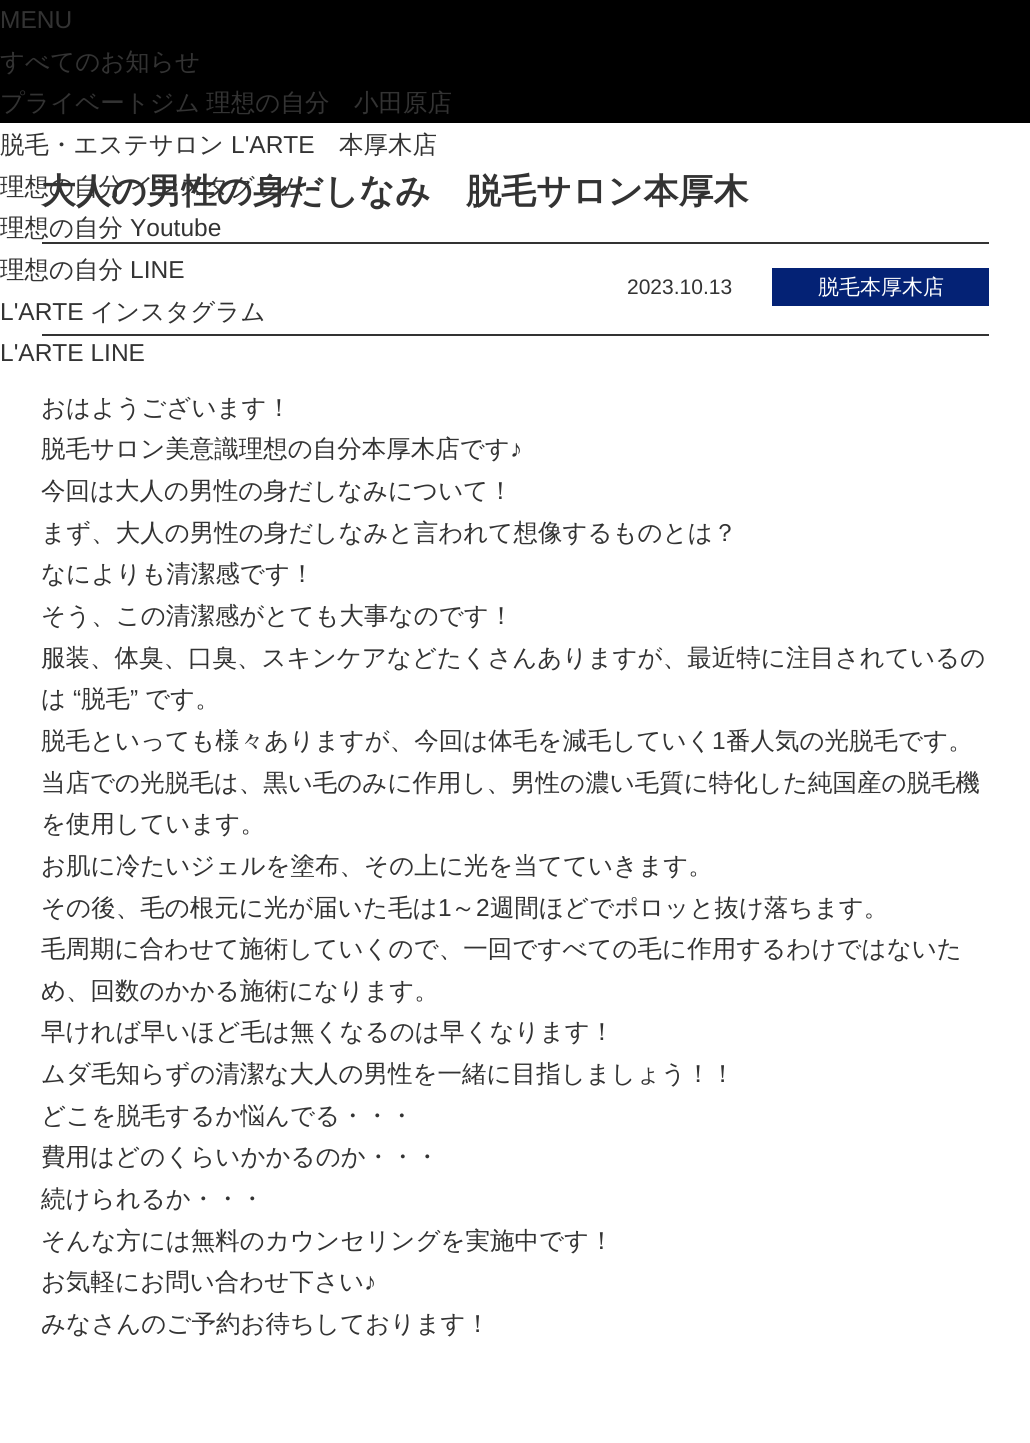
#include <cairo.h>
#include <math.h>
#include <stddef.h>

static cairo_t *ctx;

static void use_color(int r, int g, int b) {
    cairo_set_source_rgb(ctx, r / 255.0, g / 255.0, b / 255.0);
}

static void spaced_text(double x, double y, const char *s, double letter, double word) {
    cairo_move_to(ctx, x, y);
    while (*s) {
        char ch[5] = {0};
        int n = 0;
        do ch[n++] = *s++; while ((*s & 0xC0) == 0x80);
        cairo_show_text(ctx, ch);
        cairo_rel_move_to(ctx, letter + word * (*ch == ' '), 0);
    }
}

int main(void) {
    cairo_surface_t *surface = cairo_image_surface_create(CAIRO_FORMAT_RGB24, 1030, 1443);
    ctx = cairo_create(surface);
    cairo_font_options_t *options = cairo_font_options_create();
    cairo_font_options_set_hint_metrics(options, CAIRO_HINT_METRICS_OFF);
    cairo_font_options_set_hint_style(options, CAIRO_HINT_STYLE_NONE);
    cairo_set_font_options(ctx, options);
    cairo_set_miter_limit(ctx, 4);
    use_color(255, 255, 255);
    cairo_paint(ctx);
    use_color(0, 0, 0);
    cairo_rectangle(ctx, 0, 0, 1030, 123);
    cairo_fill(ctx);
    cairo_select_font_face(ctx, "Liberation Sans", CAIRO_FONT_SLANT_NORMAL, CAIRO_FONT_WEIGHT_NORMAL);
    cairo_set_font_size(ctx, 24.5);
    use_color(51, 51, 51);
    cairo_move_to(ctx, 0, 28);
    cairo_show_text(ctx, "MENU");
    cairo_select_font_face(ctx, "WenQuanYi Zen Hei Medium", CAIRO_FONT_SLANT_NORMAL, CAIRO_FONT_WEIGHT_NORMAL);
    cairo_move_to(ctx, 0, 70);
    cairo_show_text(ctx, "すべてのお知らせ");
    spaced_text(0, 111, "プライベートジム 理想の自分　小田原店", 0, -1);
    cairo_move_to(ctx, 0, 153);
    cairo_show_text(ctx, "脱毛・エステサロン");
    cairo_select_font_face(ctx, "Liberation Sans", CAIRO_FONT_SLANT_NORMAL, CAIRO_FONT_WEIGHT_NORMAL);
    cairo_move_to(ctx, 231, 153);
    cairo_show_text(ctx, "L'ARTE");
    cairo_select_font_face(ctx, "WenQuanYi Zen Hei Medium", CAIRO_FONT_SLANT_NORMAL, CAIRO_FONT_WEIGHT_NORMAL);
    cairo_move_to(ctx, 339, 153);
    cairo_show_text(ctx, "本厚木店");
    cairo_select_font_face(ctx, "WenQuanYi Zen Hei", CAIRO_FONT_SLANT_NORMAL, CAIRO_FONT_WEIGHT_BOLD);
    cairo_set_font_size(ctx, 35);
    cairo_move_to(ctx, 41, 203);
    cairo_show_text(ctx, "大人の男性の身だしなみ　脱毛サロン本厚木");
    cairo_select_font_face(ctx, "WenQuanYi Zen Hei Medium", CAIRO_FONT_SLANT_NORMAL, CAIRO_FONT_WEIGHT_NORMAL);
    cairo_set_font_size(ctx, 24.5);
    spaced_text(0, 195, "理想の自分 インスタグラム", 0, -1);
    cairo_move_to(ctx, 0, 236);
    cairo_show_text(ctx, "理想の自分");
    cairo_select_font_face(ctx, "Liberation Sans", CAIRO_FONT_SLANT_NORMAL, CAIRO_FONT_WEIGHT_NORMAL);
    cairo_move_to(ctx, 130, 236);
    cairo_show_text(ctx, "Youtube");
    cairo_select_font_face(ctx, "WenQuanYi Zen Hei Medium", CAIRO_FONT_SLANT_NORMAL, CAIRO_FONT_WEIGHT_NORMAL);
    cairo_move_to(ctx, 0, 278);
    cairo_show_text(ctx, "理想の自分");
    cairo_select_font_face(ctx, "Liberation Sans", CAIRO_FONT_SLANT_NORMAL, CAIRO_FONT_WEIGHT_NORMAL);
    cairo_move_to(ctx, 130, 278);
    cairo_show_text(ctx, "LINE");
    cairo_move_to(ctx, 0, 320);
    cairo_show_text(ctx, "L'ARTE");
    cairo_select_font_face(ctx, "WenQuanYi Zen Hei Medium", CAIRO_FONT_SLANT_NORMAL, CAIRO_FONT_WEIGHT_NORMAL);
    cairo_move_to(ctx, 90, 320);
    cairo_show_text(ctx, "インスタグラム");
    cairo_select_font_face(ctx, "Liberation Sans", CAIRO_FONT_SLANT_NORMAL, CAIRO_FONT_WEIGHT_NORMAL);
    cairo_move_to(ctx, 0, 361);
    cairo_show_text(ctx, "L'ARTE LINE");
    cairo_rectangle(ctx, 42, 242, 947, 2);
    cairo_fill(ctx);
    cairo_rectangle(ctx, 42, 334, 947, 2);
    cairo_fill(ctx);
    cairo_set_font_size(ctx, 21);
    cairo_move_to(ctx, 627, 294);
    cairo_show_text(ctx, "2023.10.13");
    use_color(4, 34, 117);
    cairo_rectangle(ctx, 772, 268, 217, 38);
    cairo_fill(ctx);
    cairo_select_font_face(ctx, "WenQuanYi Zen Hei Medium", CAIRO_FONT_SLANT_NORMAL, CAIRO_FONT_WEIGHT_NORMAL);
    use_color(255, 255, 255);
    cairo_move_to(ctx, 818, 294);
    cairo_show_text(ctx, "脱毛本厚木店");
    cairo_set_font_size(ctx, 24.5);
    use_color(51, 51, 51);
    cairo_move_to(ctx, 41, 416);
    cairo_show_text(ctx, "おはようございます！");
    cairo_move_to(ctx, 41, 457);
    cairo_show_text(ctx, "脱毛サロン美意識理想の自分本厚木店です");
    cairo_select_font_face(ctx, "Liberation Sans", CAIRO_FONT_SLANT_NORMAL, CAIRO_FONT_WEIGHT_NORMAL);
    cairo_move_to(ctx, 510, 457);
    cairo_show_text(ctx, "♪");
    cairo_select_font_face(ctx, "WenQuanYi Zen Hei Medium", CAIRO_FONT_SLANT_NORMAL, CAIRO_FONT_WEIGHT_NORMAL);
    cairo_move_to(ctx, 41, 499);
    cairo_show_text(ctx, "今回は大人の男性の身だしなみについて！");
    cairo_move_to(ctx, 41, 541);
    cairo_show_text(ctx, "まず、大人の男性の身だしなみと言われて想像するものとは？");
    cairo_move_to(ctx, 41, 582);
    cairo_show_text(ctx, "なによりも清潔感です！");
    cairo_move_to(ctx, 41, 624);
    cairo_show_text(ctx, "そう、この清潔感がとても大事なのです！");
    cairo_move_to(ctx, 41, 666);
    cairo_show_text(ctx, "服装、体臭、口臭、スキンケアなどたくさんありますが、最近特に注目されているの");
    cairo_move_to(ctx, 41, 707);
    cairo_show_text(ctx, "は");
    cairo_select_font_face(ctx, "Liberation Sans", CAIRO_FONT_SLANT_NORMAL, CAIRO_FONT_WEIGHT_NORMAL);
    cairo_move_to(ctx, 73, 707);
    cairo_show_text(ctx, "“");
    cairo_select_font_face(ctx, "WenQuanYi Zen Hei Medium", CAIRO_FONT_SLANT_NORMAL, CAIRO_FONT_WEIGHT_NORMAL);
    cairo_move_to(ctx, 81, 707);
    cairo_show_text(ctx, "脱毛");
    cairo_select_font_face(ctx, "Liberation Sans", CAIRO_FONT_SLANT_NORMAL, CAIRO_FONT_WEIGHT_NORMAL);
    cairo_move_to(ctx, 130, 707);
    cairo_show_text(ctx, "”");
    cairo_select_font_face(ctx, "WenQuanYi Zen Hei Medium", CAIRO_FONT_SLANT_NORMAL, CAIRO_FONT_WEIGHT_NORMAL);
    cairo_move_to(ctx, 145, 707);
    cairo_show_text(ctx, "です。");
    cairo_move_to(ctx, 41, 749);
    cairo_show_text(ctx, "脱毛といっても様々ありますが、今回は体毛を減毛していく");
    cairo_select_font_face(ctx, "Liberation Sans", CAIRO_FONT_SLANT_NORMAL, CAIRO_FONT_WEIGHT_NORMAL);
    cairo_move_to(ctx, 712, 749);
    cairo_show_text(ctx, "1");
    cairo_select_font_face(ctx, "WenQuanYi Zen Hei Medium", CAIRO_FONT_SLANT_NORMAL, CAIRO_FONT_WEIGHT_NORMAL);
    cairo_move_to(ctx, 726, 749);
    cairo_show_text(ctx, "番人気の光脱毛です。");
    cairo_move_to(ctx, 41, 791);
    cairo_show_text(ctx, "当店での光脱毛は、黒い毛のみに作用し、男性の濃い毛質に特化した純国産の脱毛機");
    cairo_move_to(ctx, 41, 832);
    cairo_show_text(ctx, "を使用しています。");
    cairo_move_to(ctx, 41, 874);
    cairo_show_text(ctx, "お肌に冷たいジェルを塗布、その上に光を当てていきます。");
    cairo_move_to(ctx, 41, 916);
    cairo_show_text(ctx, "その後、毛の根元に光が届いた毛は");
    cairo_select_font_face(ctx, "Liberation Sans", CAIRO_FONT_SLANT_NORMAL, CAIRO_FONT_WEIGHT_NORMAL);
    cairo_move_to(ctx, 438, 916);
    cairo_show_text(ctx, "1");
    cairo_select_font_face(ctx, "WenQuanYi Zen Hei Medium", CAIRO_FONT_SLANT_NORMAL, CAIRO_FONT_WEIGHT_NORMAL);
    cairo_move_to(ctx, 451, 916);
    cairo_show_text(ctx, "～");
    cairo_select_font_face(ctx, "Liberation Sans", CAIRO_FONT_SLANT_NORMAL, CAIRO_FONT_WEIGHT_NORMAL);
    cairo_move_to(ctx, 476, 916);
    cairo_show_text(ctx, "2");
    cairo_select_font_face(ctx, "WenQuanYi Zen Hei Medium", CAIRO_FONT_SLANT_NORMAL, CAIRO_FONT_WEIGHT_NORMAL);
    cairo_move_to(ctx, 490, 916);
    cairo_show_text(ctx, "週間ほどでポロッと抜け落ちます。");
    cairo_move_to(ctx, 41, 957);
    cairo_show_text(ctx, "毛周期に合わせて施術していくので、一回ですべての毛に作用するわけではないた");
    cairo_move_to(ctx, 41, 999);
    cairo_show_text(ctx, "め、回数のかかる施術になります。");
    cairo_move_to(ctx, 41, 1040);
    cairo_show_text(ctx, "早ければ早いほど毛は無くなるのは早くなります！");
    cairo_move_to(ctx, 41, 1082);
    cairo_show_text(ctx, "ムダ毛知らずの清潔な大人の男性を一緒に目指しましょう！！");
    cairo_move_to(ctx, 41, 1124);
    cairo_show_text(ctx, "どこを脱毛するか悩んでる・・・");
    cairo_move_to(ctx, 41, 1165);
    cairo_show_text(ctx, "費用はどのくらいかかるのか・・・");
    cairo_move_to(ctx, 41, 1207);
    cairo_show_text(ctx, "続けられるか・・・");
    cairo_move_to(ctx, 41, 1249);
    cairo_show_text(ctx, "そんな方には無料のカウンセリングを実施中です！");
    cairo_move_to(ctx, 41, 1290);
    cairo_show_text(ctx, "お気軽にお問い合わせ下さい");
    cairo_select_font_face(ctx, "Liberation Sans", CAIRO_FONT_SLANT_NORMAL, CAIRO_FONT_WEIGHT_NORMAL);
    cairo_move_to(ctx, 364, 1290);
    cairo_show_text(ctx, "♪");
    cairo_select_font_face(ctx, "WenQuanYi Zen Hei Medium", CAIRO_FONT_SLANT_NORMAL, CAIRO_FONT_WEIGHT_NORMAL);
    cairo_move_to(ctx, 41, 1332);
    cairo_show_text(ctx, "みなさんのご予約お待ちしております！");
    cairo_surface_write_to_png(surface, "result.png");
    cairo_font_options_destroy(options);
    cairo_destroy(ctx);
    cairo_surface_destroy(surface);
    return 0;
}
